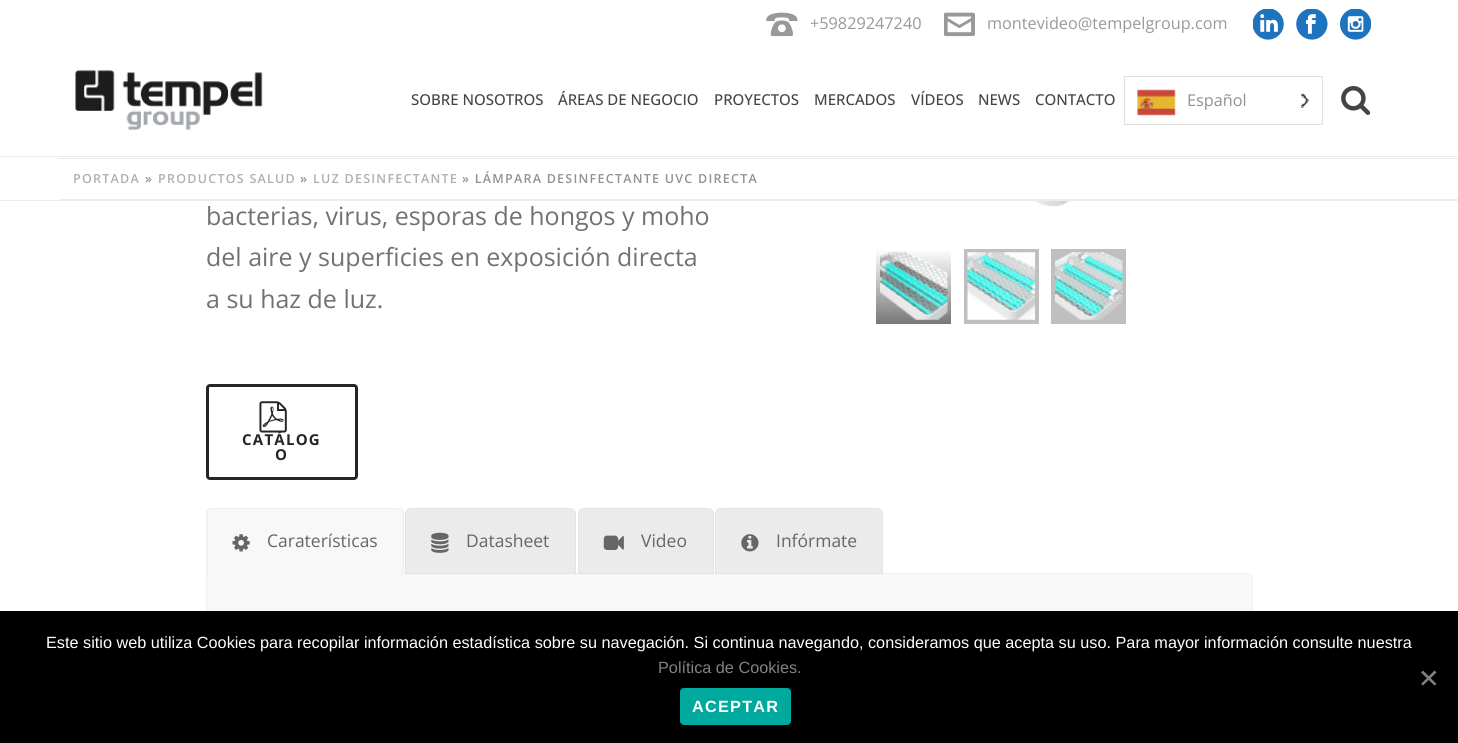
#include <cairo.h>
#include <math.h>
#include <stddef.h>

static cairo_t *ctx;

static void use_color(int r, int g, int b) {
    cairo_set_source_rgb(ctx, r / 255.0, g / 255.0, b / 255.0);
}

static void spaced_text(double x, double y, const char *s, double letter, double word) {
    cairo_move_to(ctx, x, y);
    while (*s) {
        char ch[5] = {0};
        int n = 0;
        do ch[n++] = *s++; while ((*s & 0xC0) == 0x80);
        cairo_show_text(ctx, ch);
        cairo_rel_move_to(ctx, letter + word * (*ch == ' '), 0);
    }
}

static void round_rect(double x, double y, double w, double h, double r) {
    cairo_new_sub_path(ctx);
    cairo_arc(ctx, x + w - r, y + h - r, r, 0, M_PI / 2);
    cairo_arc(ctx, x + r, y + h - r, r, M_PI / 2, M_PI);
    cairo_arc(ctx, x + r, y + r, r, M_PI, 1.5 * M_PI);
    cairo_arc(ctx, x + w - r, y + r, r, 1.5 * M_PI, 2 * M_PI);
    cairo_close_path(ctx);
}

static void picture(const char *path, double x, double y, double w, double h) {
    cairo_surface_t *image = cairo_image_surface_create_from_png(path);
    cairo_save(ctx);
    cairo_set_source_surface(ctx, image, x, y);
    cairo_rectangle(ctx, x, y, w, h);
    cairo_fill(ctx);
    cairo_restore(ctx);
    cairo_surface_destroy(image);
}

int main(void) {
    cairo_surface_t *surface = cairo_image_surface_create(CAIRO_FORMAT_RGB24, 1458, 743);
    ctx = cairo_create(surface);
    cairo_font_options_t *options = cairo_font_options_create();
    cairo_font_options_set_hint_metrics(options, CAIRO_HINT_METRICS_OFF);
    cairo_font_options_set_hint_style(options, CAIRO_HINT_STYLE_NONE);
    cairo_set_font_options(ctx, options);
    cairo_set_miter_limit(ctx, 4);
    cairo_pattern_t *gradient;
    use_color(255, 255, 255);
    cairo_paint(ctx);
    use_color(237, 237, 237);
    cairo_rectangle(ctx, 0, 200, 1458, 1);
    cairo_fill(ctx);
    picture("img1.png", 766, 12, 32, 25);
    cairo_select_font_face(ctx, "Open Sans", CAIRO_FONT_SLANT_NORMAL, CAIRO_FONT_WEIGHT_NORMAL);
    cairo_set_font_size(ctx, 16.25);
    use_color(153, 153, 153);
    cairo_move_to(ctx, 810, 29);
    cairo_show_text(ctx, "+59829247240");
    picture("img2.png", 944, 12, 31, 25);
    cairo_move_to(ctx, 987, 29);
    cairo_show_text(ctx, "montevideo@tempelgroup.com");
    picture("img3.png", 1253, 9, 31, 31);
    picture("img4.png", 1296, 9, 32, 31);
    picture("img5.png", 1340, 9, 31, 31);
    use_color(237, 237, 237);
    cairo_rectangle(ctx, 0, 156, 1458, 1);
    cairo_fill(ctx);
    picture("img6.png", 75, 70, 188, 61);
    cairo_select_font_face(ctx, "Open Sans Medium", CAIRO_FONT_SLANT_NORMAL, CAIRO_FONT_WEIGHT_NORMAL);
    cairo_set_font_size(ctx, 15);
    use_color(68, 68, 68);
    cairo_move_to(ctx, 411, 105);
    cairo_show_text(ctx, "SOBRE NOSOTROS");
    cairo_move_to(ctx, 558, 105);
    cairo_show_text(ctx, "ÁREAS DE NEGOCIO");
    cairo_move_to(ctx, 714, 105);
    cairo_show_text(ctx, "PROYECTOS");
    cairo_move_to(ctx, 814, 105);
    cairo_show_text(ctx, "MERCADOS");
    cairo_move_to(ctx, 911, 105);
    cairo_show_text(ctx, "VÍDEOS");
    cairo_move_to(ctx, 978, 105);
    cairo_show_text(ctx, "NEWS");
    cairo_move_to(ctx, 1035, 105);
    cairo_show_text(ctx, "CONTACTO");
    cairo_rectangle(ctx, 1124.5, 76.5, 198, 48);
    use_color(224, 224, 224);
    cairo_set_line_width(ctx, 1);
    cairo_stroke(ctx);
    picture("img7.png", 1137, 89, 39, 27);
    cairo_select_font_face(ctx, "Open Sans", CAIRO_FONT_SLANT_NORMAL, CAIRO_FONT_WEIGHT_NORMAL);
    cairo_set_font_size(ctx, 16.25);
    use_color(145, 145, 145);
    cairo_move_to(ctx, 1187, 106);
    cairo_show_text(ctx, "Español");
    picture("img8.png", 1301, 93, 9, 15);
    picture("img9.png", 1341, 86, 30, 29);
    use_color(237, 237, 237);
    cairo_rectangle(ctx, 59, 158, 1399, 1);
    cairo_fill(ctx);
    cairo_rectangle(ctx, 59, 199, 1399, 1);
    cairo_fill(ctx);
    cairo_select_font_face(ctx, "Open Sans SemiBold", CAIRO_FONT_SLANT_NORMAL, CAIRO_FONT_WEIGHT_NORMAL);
    cairo_set_font_size(ctx, 12.5);
    use_color(175, 175, 175);
    spaced_text(73, 183, "PORTADA", 1.25, 0);
    use_color(145, 145, 145);
    spaced_text(145, 183, "»", 1.25, 0);
    use_color(175, 175, 175);
    spaced_text(158, 183, "PRODUCTOS SALUD", 1.25, 0);
    use_color(145, 145, 145);
    spaced_text(300, 183, "»", 1.25, 0);
    use_color(175, 175, 175);
    spaced_text(313, 183, "LUZ DESINFECTANTE", 1.25, 0);
    use_color(145, 145, 145);
    spaced_text(462, 183, "» LÁMPARA DESINFECTANTE UVC DIRECTA", 1.25, 0);
    cairo_select_font_face(ctx, "Open Sans", CAIRO_FONT_SLANT_NORMAL, CAIRO_FONT_WEIGHT_NORMAL);
    cairo_set_font_size(ctx, 25);
    use_color(114, 114, 114);
    cairo_move_to(ctx, 206, 225);
    cairo_show_text(ctx, "bacterias, virus, esporas de hongos y moho");
    cairo_move_to(ctx, 206, 266);
    cairo_show_text(ctx, "del aire y superficies en exposición directa");
    cairo_move_to(ctx, 206, 308);
    cairo_show_text(ctx, "a su haz de luz.");
    round_rect(207.5, 385.5, 149, 93, 2.5);
    use_color(37, 37, 37);
    cairo_set_line_width(ctx, 3);
    cairo_stroke(ctx);
    picture("img10.png", 259, 401, 28, 32);
    cairo_select_font_face(ctx, "Open Sans", CAIRO_FONT_SLANT_NORMAL, CAIRO_FONT_WEIGHT_BOLD);
    cairo_set_font_size(ctx, 15);
    spaced_text(242, 445, "CATÁLOG", 1.25, 0);
    spaced_text(275, 460, "O", 1.25, 0);
    picture("img11.png", 1034, 201, 36, 6);
    gradient = cairo_pattern_create_linear(914, 249, 914, 324);
    cairo_pattern_add_color_stop_rgba(gradient, 0, 1, 1, 1, 1);
    cairo_pattern_add_color_stop_rgba(gradient, 1, 0.467, 0.467, 0.467, 1);
    cairo_set_source(ctx, gradient);
    cairo_pattern_destroy(gradient);
    cairo_rectangle(ctx, 876, 250, 75, 74);
    cairo_fill(ctx);
    picture("img12.png", 880, 252, 68, 68);
    use_color(191, 191, 191);
    cairo_rectangle(ctx, 964, 249, 75, 75);
    cairo_fill(ctx);
    picture("img13.png", 967, 252, 68, 68);
    cairo_rectangle(ctx, 1051, 249, 75, 75);
    cairo_fill(ctx);
    picture("img14.png", 1055, 252, 68, 68);
    use_color(248, 248, 248);
    cairo_new_path(ctx);
    cairo_move_to(ctx, 206.5, 573.5);
    cairo_line_to(ctx, 1247, 573.5);
    cairo_curve_to(ctx, 1250, 573.5, 1252.5, 576, 1252.5, 579);
    cairo_line_to(ctx, 1252.5, 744);
    cairo_curve_to(ctx, 1252.5, 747, 1250, 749.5, 1247, 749.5);
    cairo_line_to(ctx, 212, 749.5);
    cairo_curve_to(ctx, 209, 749.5, 206.5, 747, 206.5, 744);
    cairo_close_path(ctx);
    cairo_fill_preserve(ctx);
    use_color(240, 240, 240);
    cairo_set_line_width(ctx, 1);
    cairo_stroke(ctx);
    use_color(248, 248, 248);
    cairo_new_path(ctx);
    cairo_move_to(ctx, 212, 508);
    cairo_line_to(ctx, 398, 508);
    cairo_curve_to(ctx, 401.5, 508, 404, 510.5, 404, 514);
    cairo_line_to(ctx, 404, 574);
    cairo_line_to(ctx, 206, 574);
    cairo_line_to(ctx, 206, 514);
    cairo_curve_to(ctx, 206, 510.5, 208.5, 508, 212, 508);
    cairo_close_path(ctx);
    cairo_fill(ctx);
    use_color(240, 240, 240);
    cairo_new_path(ctx);
    cairo_move_to(ctx, 212, 508);
    cairo_curve_to(ctx, 211, 508, 209, 508, 208, 509);
    cairo_line_to(ctx, 209, 510);
    cairo_curve_to(ctx, 210, 510, 211, 509, 212, 509);
    cairo_line_to(ctx, 398, 509);
    cairo_curve_to(ctx, 399, 509, 400, 510, 401, 510);
    cairo_line_to(ctx, 402, 509);
    cairo_curve_to(ctx, 401, 508, 399, 508, 398, 508);
    cairo_close_path(ctx);
    cairo_fill(ctx);
    cairo_new_path(ctx);
    cairo_move_to(ctx, 402, 509);
    cairo_line_to(ctx, 404, 512);
    cairo_line_to(ctx, 404, 574);
    cairo_line_to(ctx, 402, 572);
    cairo_line_to(ctx, 402, 514);
    cairo_curve_to(ctx, 402, 513, 402, 511, 401, 510);
    cairo_close_path(ctx);
    cairo_fill(ctx);
    cairo_new_path(ctx);
    cairo_move_to(ctx, 206, 574);
    cairo_line_to(ctx, 208, 572);
    cairo_line_to(ctx, 208, 514);
    cairo_curve_to(ctx, 208, 513, 208, 511, 209, 510);
    cairo_line_to(ctx, 208, 509);
    cairo_line_to(ctx, 206, 512);
    cairo_close_path(ctx);
    cairo_fill(ctx);
    picture("img15.png", 232, 534, 18, 18);
    cairo_select_font_face(ctx, "Open Sans", CAIRO_FONT_SLANT_NORMAL, CAIRO_FONT_WEIGHT_NORMAL);
    cairo_set_font_size(ctx, 17.5);
    use_color(102, 102, 102);
    cairo_move_to(ctx, 267, 547);
    cairo_show_text(ctx, "Caraterísticas");
    use_color(240, 240, 240);
    cairo_rectangle(ctx, 206, 573, 2, 1);
    cairo_fill(ctx);
    cairo_rectangle(ctx, 403, 573, 1, 1);
    cairo_fill(ctx);
    use_color(235, 235, 235);
    cairo_new_path(ctx);
    cairo_move_to(ctx, 411, 508.5);
    cairo_line_to(ctx, 570, 508.5);
    cairo_curve_to(ctx, 573, 508.5, 575.5, 511, 575.5, 514);
    cairo_line_to(ctx, 575.5, 573.5);
    cairo_line_to(ctx, 405.5, 573.5);
    cairo_line_to(ctx, 405.5, 514);
    cairo_curve_to(ctx, 405.5, 511, 408, 508.5, 411, 508.5);
    cairo_close_path(ctx);
    cairo_fill_preserve(ctx);
    use_color(227, 227, 227);
    cairo_stroke(ctx);
    picture("img16.png", 431, 532, 18, 21);
    use_color(102, 102, 102);
    cairo_move_to(ctx, 466, 547);
    cairo_show_text(ctx, "Datasheet");
    use_color(235, 235, 235);
    cairo_new_path(ctx);
    cairo_move_to(ctx, 584, 508.5);
    cairo_line_to(ctx, 708, 508.5);
    cairo_curve_to(ctx, 711, 508.5, 713.5, 511, 713.5, 514);
    cairo_line_to(ctx, 713.5, 573.5);
    cairo_line_to(ctx, 578.5, 573.5);
    cairo_line_to(ctx, 578.5, 514);
    cairo_curve_to(ctx, 578.5, 511, 581, 508.5, 584, 508.5);
    cairo_close_path(ctx);
    cairo_fill_preserve(ctx);
    use_color(227, 227, 227);
    cairo_stroke(ctx);
    picture("img17.png", 603, 535, 21, 15);
    use_color(102, 102, 102);
    cairo_move_to(ctx, 641, 547);
    cairo_show_text(ctx, "Video");
    use_color(235, 235, 235);
    cairo_new_path(ctx);
    cairo_move_to(ctx, 721, 508.5);
    cairo_line_to(ctx, 877, 508.5);
    cairo_curve_to(ctx, 880, 508.5, 882.5, 511, 882.5, 514);
    cairo_line_to(ctx, 882.5, 573.5);
    cairo_line_to(ctx, 715.5, 573.5);
    cairo_line_to(ctx, 715.5, 514);
    cairo_curve_to(ctx, 715.5, 511, 718, 508.5, 721, 508.5);
    cairo_close_path(ctx);
    cairo_fill_preserve(ctx);
    use_color(227, 227, 227);
    cairo_stroke(ctx);
    picture("img18.png", 741, 534, 18, 18);
    use_color(102, 102, 102);
    cairo_move_to(ctx, 776, 547);
    cairo_show_text(ctx, "Infórmate");
    use_color(0, 0, 0);
    cairo_rectangle(ctx, 0, 611, 1458, 132);
    cairo_fill(ctx);
    cairo_select_font_face(ctx, "Liberation Sans", CAIRO_FONT_SLANT_NORMAL, CAIRO_FONT_WEIGHT_NORMAL);
    cairo_set_font_size(ctx, 16.25);
    use_color(255, 255, 255);
    cairo_move_to(ctx, 46, 648);
    cairo_show_text(ctx, "Este sitio web utiliza Cookies para recopilar información estadística sobre su navegación. Si continua navegando, consideramos que acepta su uso. Para mayor información consulte nuestra");
    use_color(130, 130, 130);
    cairo_move_to(ctx, 658, 673);
    cairo_show_text(ctx, "Política de Cookies.");
    use_color(128, 128, 128);
    cairo_new_path(ctx);
    cairo_move_to(ctx, 1434.5, 670.5);
    cairo_line_to(ctx, 1436.5, 672.5);
    cairo_line_to(ctx, 1423, 685.5);
    cairo_line_to(ctx, 1421, 684);
    cairo_close_path(ctx);
    cairo_fill(ctx);
    cairo_new_path(ctx);
    cairo_move_to(ctx, 1421, 672.5);
    cairo_line_to(ctx, 1423, 670.5);
    cairo_line_to(ctx, 1436.5, 684);
    cairo_line_to(ctx, 1434.5, 685.5);
    cairo_close_path(ctx);
    cairo_fill(ctx);
    use_color(0, 169, 157);
    round_rect(680, 688, 111, 37, 4);
    cairo_fill(ctx);
    cairo_select_font_face(ctx, "Liberation Sans", CAIRO_FONT_SLANT_NORMAL, CAIRO_FONT_WEIGHT_BOLD);
    use_color(255, 255, 255);
    spaced_text(692, 712, "ACEPTAR", 1.25, 0);
    cairo_surface_write_to_png(surface, "result.png");
    cairo_font_options_destroy(options);
    cairo_destroy(ctx);
    cairo_surface_destroy(surface);
    return 0;
}
